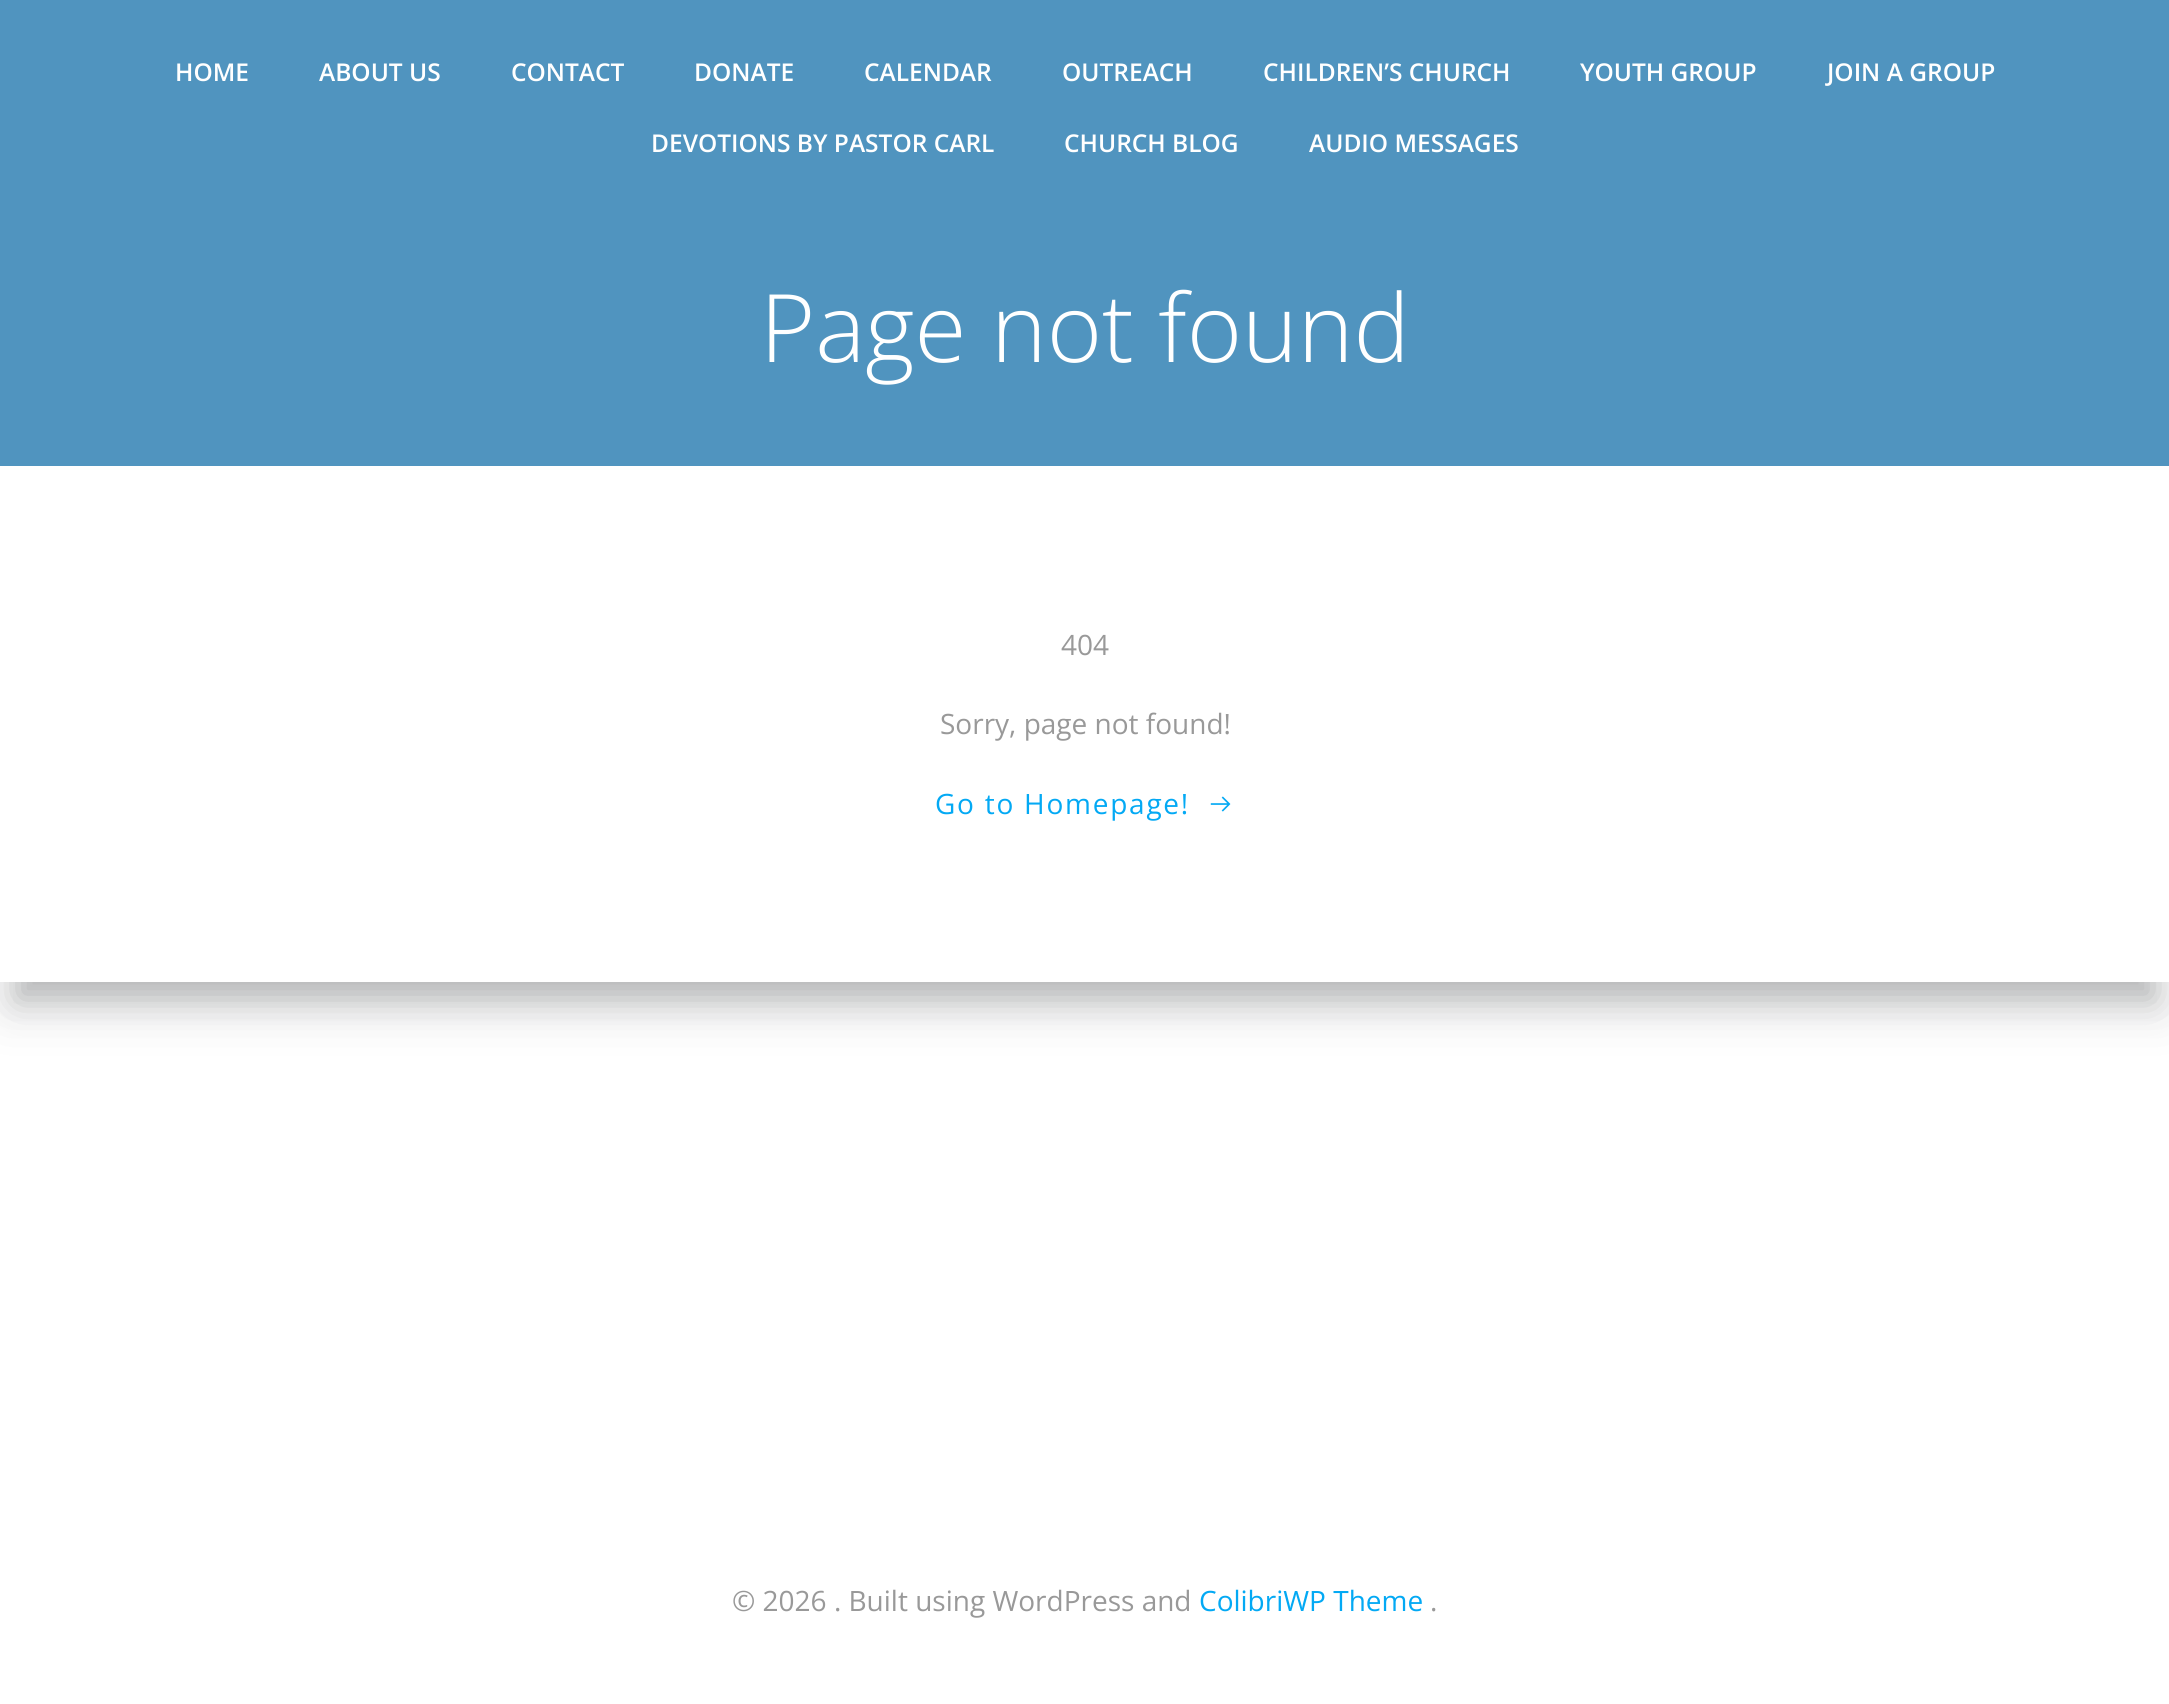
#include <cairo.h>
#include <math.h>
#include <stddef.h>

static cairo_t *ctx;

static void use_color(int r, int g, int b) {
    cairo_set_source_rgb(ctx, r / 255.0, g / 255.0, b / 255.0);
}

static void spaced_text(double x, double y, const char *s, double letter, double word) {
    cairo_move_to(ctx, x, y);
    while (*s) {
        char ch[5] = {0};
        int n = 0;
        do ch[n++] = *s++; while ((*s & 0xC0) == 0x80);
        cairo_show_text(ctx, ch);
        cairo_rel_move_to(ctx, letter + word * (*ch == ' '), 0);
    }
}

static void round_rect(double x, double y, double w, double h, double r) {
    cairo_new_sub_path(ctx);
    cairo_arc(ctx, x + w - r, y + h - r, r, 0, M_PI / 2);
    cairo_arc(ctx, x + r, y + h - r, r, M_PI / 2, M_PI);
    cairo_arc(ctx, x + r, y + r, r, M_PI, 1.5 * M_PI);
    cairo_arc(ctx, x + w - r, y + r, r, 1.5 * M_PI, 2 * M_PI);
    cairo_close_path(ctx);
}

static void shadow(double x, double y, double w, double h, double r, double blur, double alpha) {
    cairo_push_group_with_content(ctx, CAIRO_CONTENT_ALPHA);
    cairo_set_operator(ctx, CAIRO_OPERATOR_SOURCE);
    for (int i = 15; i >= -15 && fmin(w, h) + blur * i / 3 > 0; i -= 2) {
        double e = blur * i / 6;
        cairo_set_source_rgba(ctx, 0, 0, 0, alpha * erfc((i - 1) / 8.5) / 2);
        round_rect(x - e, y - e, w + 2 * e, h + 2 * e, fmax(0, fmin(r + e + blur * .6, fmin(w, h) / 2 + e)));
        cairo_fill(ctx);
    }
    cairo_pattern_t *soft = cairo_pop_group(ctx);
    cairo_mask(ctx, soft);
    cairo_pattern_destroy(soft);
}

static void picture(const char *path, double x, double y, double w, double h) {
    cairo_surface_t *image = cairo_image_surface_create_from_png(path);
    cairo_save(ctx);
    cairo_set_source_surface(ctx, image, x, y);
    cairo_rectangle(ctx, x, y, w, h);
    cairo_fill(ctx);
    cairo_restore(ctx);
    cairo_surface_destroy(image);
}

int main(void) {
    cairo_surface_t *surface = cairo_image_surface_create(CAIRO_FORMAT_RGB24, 2169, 1704);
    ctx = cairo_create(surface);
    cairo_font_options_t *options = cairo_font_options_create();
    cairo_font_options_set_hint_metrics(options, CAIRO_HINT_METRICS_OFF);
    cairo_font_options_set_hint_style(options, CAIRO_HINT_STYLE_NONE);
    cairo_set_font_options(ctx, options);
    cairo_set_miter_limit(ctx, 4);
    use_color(255, 255, 255);
    cairo_paint(ctx);
    use_color(0, 0, 0);
    shadow(0, 501, 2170, 516, 0, 26, 0.08);
    use_color(49, 52, 57);
    shadow(18, 518, 2135, 481, 0, 17.5, 0.3);
    use_color(80, 148, 191);
    cairo_rectangle(ctx, 0, 0, 2169, 466);
    cairo_fill(ctx);
    cairo_select_font_face(ctx, "Open Sans SemiBold", CAIRO_FONT_SLANT_NORMAL, CAIRO_FONT_WEIGHT_NORMAL);
    cairo_set_font_size(ctx, 24.5);
    use_color(255, 255, 255);
    cairo_move_to(ctx, 175, 81);
    cairo_show_text(ctx, "HOME");
    cairo_move_to(ctx, 319, 81);
    cairo_show_text(ctx, "ABOUT US");
    cairo_move_to(ctx, 511, 81);
    cairo_show_text(ctx, "CONTACT");
    cairo_move_to(ctx, 694, 81);
    cairo_show_text(ctx, "DONATE");
    cairo_move_to(ctx, 864, 81);
    cairo_show_text(ctx, "CALENDAR");
    cairo_move_to(ctx, 1062, 81);
    cairo_show_text(ctx, "OUTREACH");
    cairo_move_to(ctx, 1263, 81);
    cairo_show_text(ctx, "CHILDREN’S CHURCH");
    cairo_move_to(ctx, 1580, 81);
    cairo_show_text(ctx, "YOUTH GROUP");
    cairo_move_to(ctx, 1827, 81);
    cairo_show_text(ctx, "JOIN A GROUP");
    cairo_move_to(ctx, 651, 152);
    cairo_show_text(ctx, "DEVOTIONS BY PASTOR CARL");
    cairo_move_to(ctx, 1064, 152);
    cairo_show_text(ctx, "CHURCH BLOG");
    cairo_move_to(ctx, 1309, 152);
    cairo_show_text(ctx, "AUDIO MESSAGES");
    cairo_select_font_face(ctx, "Open Sans Light", CAIRO_FONT_SLANT_NORMAL, CAIRO_FONT_WEIGHT_NORMAL);
    cairo_set_font_size(ctx, 94.5);
    cairo_move_to(ctx, 760, 362);
    cairo_show_text(ctx, "Page not found");
    cairo_rectangle(ctx, 0, 470, 2169, 512);
    cairo_fill(ctx);
    cairo_select_font_face(ctx, "Open Sans", CAIRO_FONT_SLANT_NORMAL, CAIRO_FONT_WEIGHT_NORMAL);
    cairo_set_font_size(ctx, 28);
    use_color(153, 153, 153);
    cairo_move_to(ctx, 1061, 655);
    cairo_show_text(ctx, "404");
    cairo_move_to(ctx, 940, 734);
    cairo_show_text(ctx, "Sorry, page not found!");
    use_color(3, 169, 244);
    spaced_text(935, 814, "Go to Homepage!", 1.75, 0);
    picture("img1.png", 1210, 796, 21, 16);
    use_color(153, 153, 153);
    cairo_move_to(ctx, 732, 1611);
    cairo_show_text(ctx, "© 2026 . Built using WordPress and");
    use_color(3, 169, 244);
    cairo_move_to(ctx, 1199, 1611);
    cairo_show_text(ctx, "ColibriWP Theme");
    use_color(153, 153, 153);
    cairo_move_to(ctx, 1430, 1611);
    cairo_show_text(ctx, ".");
    cairo_surface_write_to_png(surface, "result.png");
    cairo_font_options_destroy(options);
    cairo_destroy(ctx);
    cairo_surface_destroy(surface);
    return 0;
}
